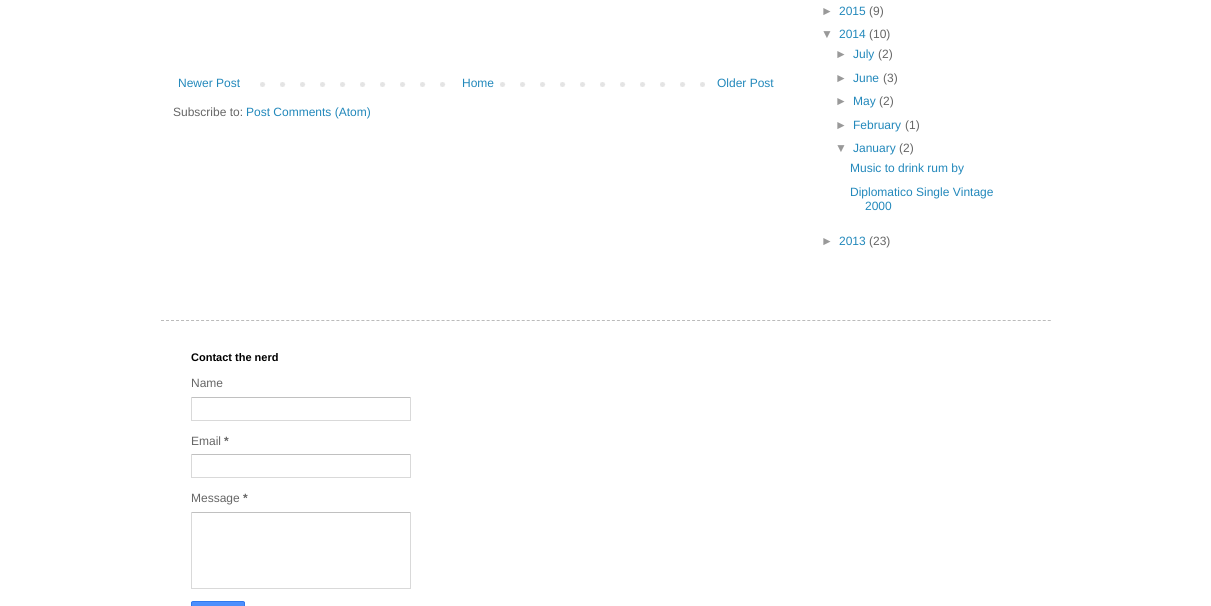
#include <cairo.h>
#include <math.h>
#include <stddef.h>

static cairo_t *ctx;

static void use_color(int r, int g, int b) {
    cairo_set_source_rgb(ctx, r / 255.0, g / 255.0, b / 255.0);
}

static void round_rect(double x, double y, double w, double h, double r) {
    cairo_new_sub_path(ctx);
    cairo_arc(ctx, x + w - r, y + h - r, r, 0, M_PI / 2);
    cairo_arc(ctx, x + r, y + h - r, r, M_PI / 2, M_PI);
    cairo_arc(ctx, x + r, y + r, r, M_PI, 1.5 * M_PI);
    cairo_arc(ctx, x + w - r, y + r, r, 1.5 * M_PI, 2 * M_PI);
    cairo_close_path(ctx);
}

static void picture(const char *path, double x, double y, double w, double h) {
    cairo_surface_t *image = cairo_image_surface_create_from_png(path);
    cairo_save(ctx);
    cairo_set_source_surface(ctx, image, x, y);
    cairo_rectangle(ctx, x, y, w, h);
    cairo_fill(ctx);
    cairo_restore(ctx);
    cairo_surface_destroy(image);
}

int main(void) {
    cairo_surface_t *surface = cairo_image_surface_create(CAIRO_FORMAT_RGB24, 1211, 606);
    ctx = cairo_create(surface);
    cairo_font_options_t *options = cairo_font_options_create();
    cairo_font_options_set_hint_metrics(options, CAIRO_HINT_METRICS_OFF);
    cairo_font_options_set_hint_style(options, CAIRO_HINT_STYLE_NONE);
    cairo_set_font_options(ctx, options);
    cairo_set_miter_limit(ctx, 4);
    cairo_pattern_t *gradient;
    use_color(255, 255, 255);
    cairo_paint(ctx);
    picture("img1.png", 260, 82, 445, 5);
    cairo_select_font_face(ctx, "Liberation Sans", CAIRO_FONT_SLANT_NORMAL, CAIRO_FONT_WEIGHT_NORMAL);
    cairo_set_font_size(ctx, 12);
    use_color(34, 136, 187);
    cairo_move_to(ctx, 178, 87);
    cairo_show_text(ctx, "Newer Post");
    use_color(255, 255, 255);
    cairo_rectangle(ctx, 460, 82, 26, 5);
    cairo_fill(ctx);
    use_color(34, 136, 187);
    cairo_move_to(ctx, 462, 87);
    cairo_show_text(ctx, "Home");
    cairo_move_to(ctx, 717, 87);
    cairo_show_text(ctx, "Older Post");
    use_color(102, 102, 102);
    cairo_move_to(ctx, 173, 116);
    cairo_show_text(ctx, "Subscribe to:");
    use_color(34, 136, 187);
    cairo_move_to(ctx, 246, 116);
    cairo_show_text(ctx, "Post Comments (Atom)");
    use_color(153, 153, 153);
    cairo_move_to(ctx, 821, 15);
    cairo_show_text(ctx, "►");
    use_color(34, 136, 187);
    cairo_move_to(ctx, 839, 15);
    cairo_show_text(ctx, "2015");
    use_color(102, 102, 102);
    cairo_move_to(ctx, 869, 15);
    cairo_show_text(ctx, "(9)");
    use_color(153, 153, 153);
    cairo_move_to(ctx, 821, 38);
    cairo_show_text(ctx, "▼");
    use_color(34, 136, 187);
    cairo_move_to(ctx, 839, 38);
    cairo_show_text(ctx, "2014");
    use_color(102, 102, 102);
    cairo_move_to(ctx, 869, 38);
    cairo_show_text(ctx, "(10)");
    use_color(153, 153, 153);
    cairo_move_to(ctx, 835, 58);
    cairo_show_text(ctx, "►");
    use_color(34, 136, 187);
    cairo_move_to(ctx, 853, 58);
    cairo_show_text(ctx, "July");
    use_color(102, 102, 102);
    cairo_move_to(ctx, 878, 58);
    cairo_show_text(ctx, "(2)");
    use_color(153, 153, 153);
    cairo_move_to(ctx, 835, 82);
    cairo_show_text(ctx, "►");
    use_color(34, 136, 187);
    cairo_move_to(ctx, 853, 82);
    cairo_show_text(ctx, "June");
    use_color(102, 102, 102);
    cairo_move_to(ctx, 883, 82);
    cairo_show_text(ctx, "(3)");
    use_color(153, 153, 153);
    cairo_move_to(ctx, 835, 105);
    cairo_show_text(ctx, "►");
    use_color(34, 136, 187);
    cairo_move_to(ctx, 853, 105);
    cairo_show_text(ctx, "May");
    use_color(102, 102, 102);
    cairo_move_to(ctx, 879, 105);
    cairo_show_text(ctx, "(2)");
    use_color(153, 153, 153);
    cairo_move_to(ctx, 835, 129);
    cairo_show_text(ctx, "►");
    use_color(34, 136, 187);
    cairo_move_to(ctx, 853, 129);
    cairo_show_text(ctx, "February");
    use_color(102, 102, 102);
    cairo_move_to(ctx, 905, 129);
    cairo_show_text(ctx, "(1)");
    use_color(153, 153, 153);
    cairo_move_to(ctx, 835, 152);
    cairo_show_text(ctx, "▼");
    use_color(34, 136, 187);
    cairo_move_to(ctx, 853, 152);
    cairo_show_text(ctx, "January");
    use_color(102, 102, 102);
    cairo_move_to(ctx, 899, 152);
    cairo_show_text(ctx, "(2)");
    use_color(34, 136, 187);
    cairo_move_to(ctx, 850, 172);
    cairo_show_text(ctx, "Music to drink rum by");
    cairo_move_to(ctx, 850, 196);
    cairo_show_text(ctx, "Diplomatico Single Vintage");
    cairo_move_to(ctx, 865, 210);
    cairo_show_text(ctx, "2000");
    use_color(153, 153, 153);
    cairo_move_to(ctx, 821, 245);
    cairo_show_text(ctx, "►");
    use_color(34, 136, 187);
    cairo_move_to(ctx, 839, 245);
    cairo_show_text(ctx, "2013");
    use_color(102, 102, 102);
    cairo_move_to(ctx, 869, 245);
    cairo_show_text(ctx, "(23)");
    cairo_new_path(ctx);
    cairo_move_to(ctx, 161, 320.5);
    cairo_line_to(ctx, 1051, 320.5);
    use_color(187, 187, 187);
    cairo_set_line_width(ctx, 1);
    cairo_set_dash(ctx, (double[]){3, 2.01}, 2, 0);
    cairo_stroke(ctx);
    cairo_select_font_face(ctx, "Liberation Sans", CAIRO_FONT_SLANT_NORMAL, CAIRO_FONT_WEIGHT_BOLD);
    cairo_set_font_size(ctx, 11);
    use_color(0, 0, 0);
    cairo_move_to(ctx, 191, 361);
    cairo_show_text(ctx, "Contact the nerd");
    cairo_select_font_face(ctx, "Liberation Sans", CAIRO_FONT_SLANT_NORMAL, CAIRO_FONT_WEIGHT_NORMAL);
    cairo_set_font_size(ctx, 12);
    use_color(102, 102, 102);
    cairo_move_to(ctx, 191, 387);
    cairo_show_text(ctx, "Name");
    use_color(192, 192, 192);
    cairo_rectangle(ctx, 191, 397, 220, 1);
    cairo_fill(ctx);
    use_color(217, 217, 217);
    cairo_rectangle(ctx, 410, 397, 1, 24);
    cairo_fill(ctx);
    cairo_rectangle(ctx, 191, 420, 220, 1);
    cairo_fill(ctx);
    cairo_rectangle(ctx, 191, 397, 1, 24);
    cairo_fill(ctx);
    use_color(102, 102, 102);
    cairo_move_to(ctx, 191, 445);
    cairo_show_text(ctx, "Email");
    cairo_select_font_face(ctx, "Liberation Sans", CAIRO_FONT_SLANT_NORMAL, CAIRO_FONT_WEIGHT_BOLD);
    cairo_move_to(ctx, 224, 445);
    cairo_show_text(ctx, "*");
    use_color(192, 192, 192);
    cairo_rectangle(ctx, 191, 454, 220, 1);
    cairo_fill(ctx);
    use_color(217, 217, 217);
    cairo_rectangle(ctx, 410, 454, 1, 24);
    cairo_fill(ctx);
    cairo_rectangle(ctx, 191, 477, 220, 1);
    cairo_fill(ctx);
    cairo_rectangle(ctx, 191, 454, 1, 24);
    cairo_fill(ctx);
    cairo_select_font_face(ctx, "Liberation Sans", CAIRO_FONT_SLANT_NORMAL, CAIRO_FONT_WEIGHT_NORMAL);
    use_color(102, 102, 102);
    cairo_move_to(ctx, 191, 502);
    cairo_show_text(ctx, "Message");
    cairo_select_font_face(ctx, "Liberation Sans", CAIRO_FONT_SLANT_NORMAL, CAIRO_FONT_WEIGHT_BOLD);
    cairo_move_to(ctx, 243, 502);
    cairo_show_text(ctx, "*");
    use_color(192, 192, 192);
    cairo_rectangle(ctx, 191, 512, 220, 1);
    cairo_fill(ctx);
    use_color(217, 217, 217);
    cairo_rectangle(ctx, 410, 512, 1, 77);
    cairo_fill(ctx);
    cairo_rectangle(ctx, 191, 588, 220, 1);
    cairo_fill(ctx);
    cairo_rectangle(ctx, 191, 512, 1, 77);
    cairo_fill(ctx);
    gradient = cairo_pattern_create_linear(218, 602, 218, 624);
    cairo_pattern_add_color_stop_rgba(gradient, 0, 0.302, 0.565, 0.996, 1);
    cairo_pattern_add_color_stop_rgba(gradient, 1, 0.278, 0.529, 0.929, 1);
    cairo_set_source(ctx, gradient);
    cairo_pattern_destroy(gradient);
    cairo_rectangle(ctx, 191, 602, 54, 4);
    cairo_fill(ctx);
    round_rect(191.5, 601.5, 53, 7, 1.5);
    use_color(48, 121, 237);
    cairo_set_dash(ctx, NULL, 0, 0);
    cairo_stroke(ctx);
    cairo_surface_write_to_png(surface, "result.png");
    cairo_font_options_destroy(options);
    cairo_destroy(ctx);
    cairo_surface_destroy(surface);
    return 0;
}
